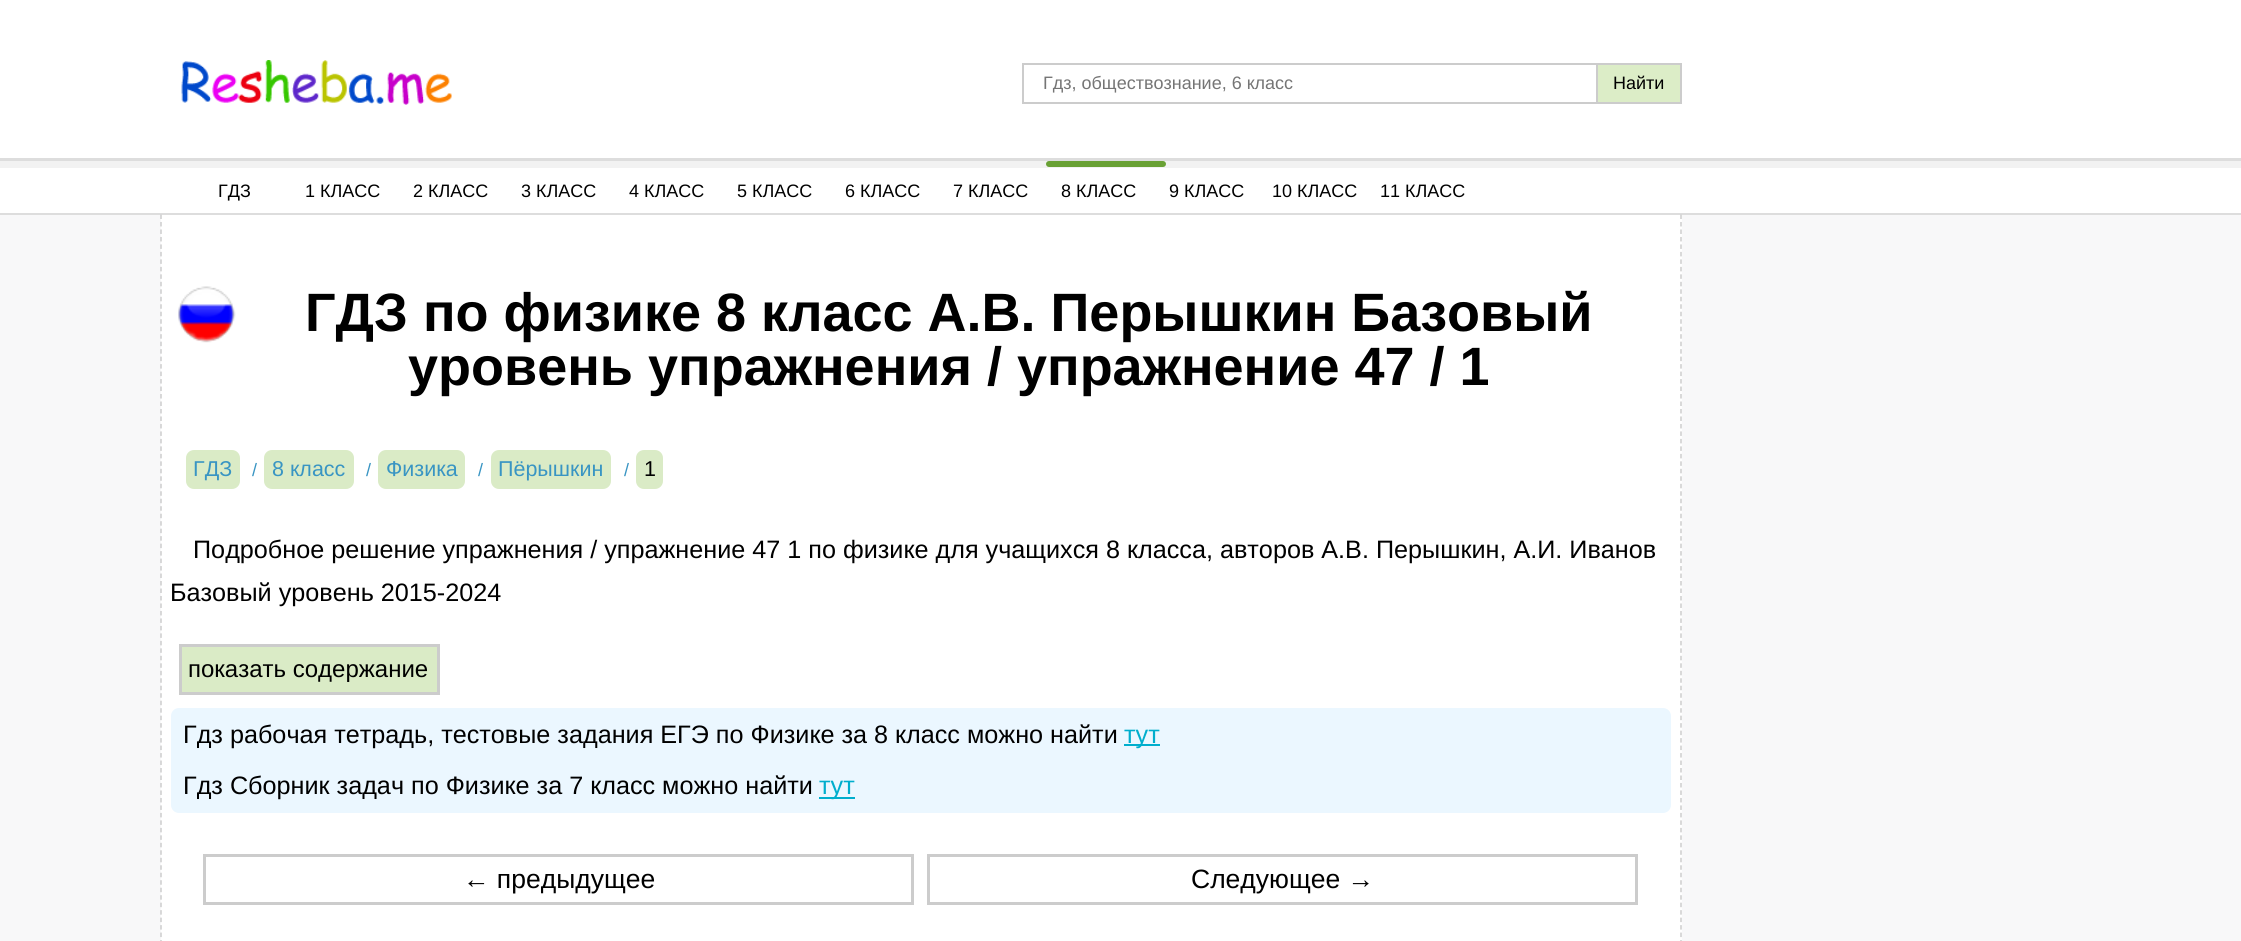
#include <cairo.h>
#include <math.h>
#include <stddef.h>

static cairo_t *ctx;

static void use_color(int r, int g, int b) {
    cairo_set_source_rgb(ctx, r / 255.0, g / 255.0, b / 255.0);
}

static void round_rect(double x, double y, double w, double h, double r) {
    cairo_new_sub_path(ctx);
    cairo_arc(ctx, x + w - r, y + h - r, r, 0, M_PI / 2);
    cairo_arc(ctx, x + r, y + h - r, r, M_PI / 2, M_PI);
    cairo_arc(ctx, x + r, y + r, r, M_PI, 1.5 * M_PI);
    cairo_arc(ctx, x + w - r, y + r, r, 1.5 * M_PI, 2 * M_PI);
    cairo_close_path(ctx);
}

static void picture(const char *path, double x, double y, double w, double h) {
    cairo_surface_t *image = cairo_image_surface_create_from_png(path);
    cairo_save(ctx);
    cairo_set_source_surface(ctx, image, x, y);
    cairo_rectangle(ctx, x, y, w, h);
    cairo_fill(ctx);
    cairo_restore(ctx);
    cairo_surface_destroy(image);
}

int main(void) {
    cairo_surface_t *surface = cairo_image_surface_create(CAIRO_FORMAT_RGB24, 2241, 941);
    ctx = cairo_create(surface);
    cairo_font_options_t *options = cairo_font_options_create();
    cairo_font_options_set_hint_metrics(options, CAIRO_HINT_METRICS_OFF);
    cairo_font_options_set_hint_style(options, CAIRO_HINT_STYLE_NONE);
    cairo_set_font_options(ctx, options);
    cairo_set_miter_limit(ctx, 4);
    use_color(248, 248, 249);
    cairo_paint(ctx);
    use_color(255, 255, 255);
    cairo_rectangle(ctx, 0, 0, 2241, 158);
    cairo_fill(ctx);
    use_color(221, 221, 221);
    cairo_rectangle(ctx, 0, 158, 2241, 3);
    cairo_fill(ctx);
    picture("img1.png", 181, 60, 271, 45);
    cairo_rectangle(ctx, 1023, 64, 658, 39);
    use_color(204, 204, 204);
    cairo_stroke(ctx);
    cairo_select_font_face(ctx, "Liberation Sans", CAIRO_FONT_SLANT_NORMAL, CAIRO_FONT_WEIGHT_NORMAL);
    cairo_set_font_size(ctx, 18);
    use_color(117, 117, 117);
    cairo_move_to(ctx, 1043, 89);
    cairo_show_text(ctx, "Гдз, обществознание, 6 класс");
    use_color(220, 237, 199);
    cairo_rectangle(ctx, 1598, 65, 82, 37);
    cairo_fill(ctx);
    use_color(204, 204, 204);
    cairo_rectangle(ctx, 1596, 65, 2, 37);
    cairo_fill(ctx);
    use_color(0, 0, 0);
    cairo_move_to(ctx, 1613, 89);
    cairo_show_text(ctx, "Найти");
    use_color(255, 255, 255);
    cairo_rectangle(ctx, 0, 168, 2241, 45);
    cairo_fill(ctx);
    use_color(221, 221, 221);
    cairo_rectangle(ctx, 0, 213, 2241, 2);
    cairo_fill(ctx);
    use_color(242, 242, 242);
    cairo_rectangle(ctx, 0, 161, 2241, 7);
    cairo_fill(ctx);
    use_color(0, 0, 0);
    cairo_move_to(ctx, 218, 197);
    cairo_show_text(ctx, "ГДЗ");
    cairo_move_to(ctx, 305, 197);
    cairo_show_text(ctx, "1 КЛАСС");
    cairo_move_to(ctx, 413, 197);
    cairo_show_text(ctx, "2 КЛАСС");
    cairo_move_to(ctx, 521, 197);
    cairo_show_text(ctx, "3 КЛАСС");
    cairo_move_to(ctx, 629, 197);
    cairo_show_text(ctx, "4 КЛАСС");
    cairo_move_to(ctx, 737, 197);
    cairo_show_text(ctx, "5 КЛАСС");
    cairo_move_to(ctx, 845, 197);
    cairo_show_text(ctx, "6 КЛАСС");
    cairo_move_to(ctx, 953, 197);
    cairo_show_text(ctx, "7 КЛАСС");
    use_color(105, 161, 52);
    round_rect(1046, 161, 120, 6, 3);
    cairo_fill(ctx);
    use_color(0, 0, 0);
    cairo_move_to(ctx, 1061, 197);
    cairo_show_text(ctx, "8 КЛАСС");
    cairo_move_to(ctx, 1169, 197);
    cairo_show_text(ctx, "9 КЛАСС");
    cairo_move_to(ctx, 1272, 197);
    cairo_show_text(ctx, "10 КЛАСС");
    cairo_move_to(ctx, 1380, 197);
    cairo_show_text(ctx, "11 КЛАСС");
    use_color(255, 255, 255);
    cairo_rectangle(ctx, 161, 215, 1521, 726);
    cairo_fill(ctx);
    cairo_new_path(ctx);
    cairo_move_to(ctx, 1681, 214.5);
    cairo_line_to(ctx, 1681, 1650);
    use_color(204, 204, 204);
    cairo_set_line_width(ctx, 1.5);
    cairo_set_dash(ctx, (double[]){4.5, 2.98}, 2, 0);
    cairo_stroke(ctx);
    cairo_new_path(ctx);
    cairo_move_to(ctx, 161, 214.5);
    cairo_line_to(ctx, 161, 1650);
    cairo_stroke(ctx);
    picture("img2.png", 178, 286, 58, 57);
    cairo_select_font_face(ctx, "Liberation Sans", CAIRO_FONT_SLANT_NORMAL, CAIRO_FONT_WEIGHT_BOLD);
    cairo_set_font_size(ctx, 54);
    use_color(0, 0, 0);
    cairo_move_to(ctx, 305, 331);
    cairo_show_text(ctx, "ГДЗ по физике 8 класс А.В. Перышкин Базовый");
    cairo_move_to(ctx, 408, 385);
    cairo_show_text(ctx, "уровень упражнения / упражнение 47 / 1");
    use_color(218, 235, 198);
    round_rect(186, 450, 54, 39, 8);
    cairo_fill(ctx);
    cairo_select_font_face(ctx, "Liberation Sans", CAIRO_FONT_SLANT_NORMAL, CAIRO_FONT_WEIGHT_NORMAL);
    cairo_set_font_size(ctx, 21.5);
    use_color(57, 149, 195);
    cairo_move_to(ctx, 193, 476);
    cairo_show_text(ctx, "ГДЗ");
    cairo_set_font_size(ctx, 18);
    cairo_move_to(ctx, 252, 476);
    cairo_show_text(ctx, "/");
    use_color(218, 235, 198);
    round_rect(264, 450, 90, 39, 8);
    cairo_fill(ctx);
    cairo_set_font_size(ctx, 21.5);
    use_color(57, 149, 195);
    cairo_move_to(ctx, 272, 476);
    cairo_show_text(ctx, "8 класс");
    cairo_set_font_size(ctx, 18);
    cairo_move_to(ctx, 366, 476);
    cairo_show_text(ctx, "/");
    use_color(218, 235, 198);
    round_rect(378, 450, 87, 39, 8);
    cairo_fill(ctx);
    cairo_set_font_size(ctx, 21.5);
    use_color(57, 149, 195);
    cairo_move_to(ctx, 386, 476);
    cairo_show_text(ctx, "Физика");
    cairo_set_font_size(ctx, 18);
    cairo_move_to(ctx, 478, 476);
    cairo_show_text(ctx, "/");
    use_color(218, 235, 198);
    round_rect(491, 450, 120, 39, 8);
    cairo_fill(ctx);
    cairo_set_font_size(ctx, 21.5);
    use_color(57, 149, 195);
    cairo_move_to(ctx, 498, 476);
    cairo_show_text(ctx, "Пёрышкин");
    cairo_set_font_size(ctx, 18);
    cairo_move_to(ctx, 624, 476);
    cairo_show_text(ctx, "/");
    use_color(218, 235, 198);
    round_rect(636, 450, 27, 39, 8);
    cairo_fill(ctx);
    cairo_set_font_size(ctx, 21.5);
    use_color(0, 0, 0);
    cairo_move_to(ctx, 644, 476);
    cairo_show_text(ctx, "1");
    cairo_set_font_size(ctx, 25.2);
    cairo_move_to(ctx, 193, 558);
    cairo_show_text(ctx, "Подробное решение упражнения / упражнение 47 1 по физике для учащихся 8 класса, авторов А.В. Перышкин, А.И. Иванов");
    cairo_move_to(ctx, 170, 601);
    cairo_show_text(ctx, "Базовый уровень 2015-2024");
    use_color(218, 235, 198);
    cairo_rectangle(ctx, 180.5, 645.5, 258, 48);
    cairo_fill_preserve(ctx);
    use_color(204, 204, 204);
    cairo_set_line_width(ctx, 3);
    cairo_set_dash(ctx, NULL, 0, 0);
    cairo_stroke(ctx);
    cairo_set_font_size(ctx, 24);
    use_color(0, 0, 0);
    cairo_move_to(ctx, 188, 677);
    cairo_show_text(ctx, "показать содержание");
    use_color(235, 247, 255);
    round_rect(171, 708, 1500, 105, 8);
    cairo_fill(ctx);
    cairo_set_font_size(ctx, 25.2);
    use_color(0, 0, 0);
    cairo_move_to(ctx, 183, 743);
    cairo_show_text(ctx, "Гдз рабочая тетрадь, тестовые задания ЕГЭ по Физике за 8 класс можно найти");
    use_color(0, 174, 205);
    cairo_rectangle(ctx, 1124, 744, 36, 2);
    cairo_fill(ctx);
    cairo_move_to(ctx, 1124, 743);
    cairo_show_text(ctx, "тут");
    use_color(0, 0, 0);
    cairo_move_to(ctx, 183, 794);
    cairo_show_text(ctx, "Гдз Сборник задач по Физике за 7 класс можно найти");
    use_color(0, 174, 205);
    cairo_rectangle(ctx, 819, 797, 36, 2);
    cairo_fill(ctx);
    cairo_move_to(ctx, 819, 794);
    cairo_show_text(ctx, "тут");
    cairo_rectangle(ctx, 204.5, 855.5, 708, 48);
    use_color(204, 204, 204);
    cairo_stroke(ctx);
    cairo_set_font_size(ctx, 26.5);
    use_color(0, 0, 0);
    cairo_move_to(ctx, 463, 888);
    cairo_show_text(ctx, "← предыдущее");
    cairo_rectangle(ctx, 928.5, 855.5, 708, 48);
    use_color(204, 204, 204);
    cairo_stroke(ctx);
    use_color(0, 0, 0);
    cairo_move_to(ctx, 1191, 888);
    cairo_show_text(ctx, "Следующее →");
    cairo_surface_write_to_png(surface, "result.png");
    cairo_font_options_destroy(options);
    cairo_destroy(ctx);
    cairo_surface_destroy(surface);
    return 0;
}
